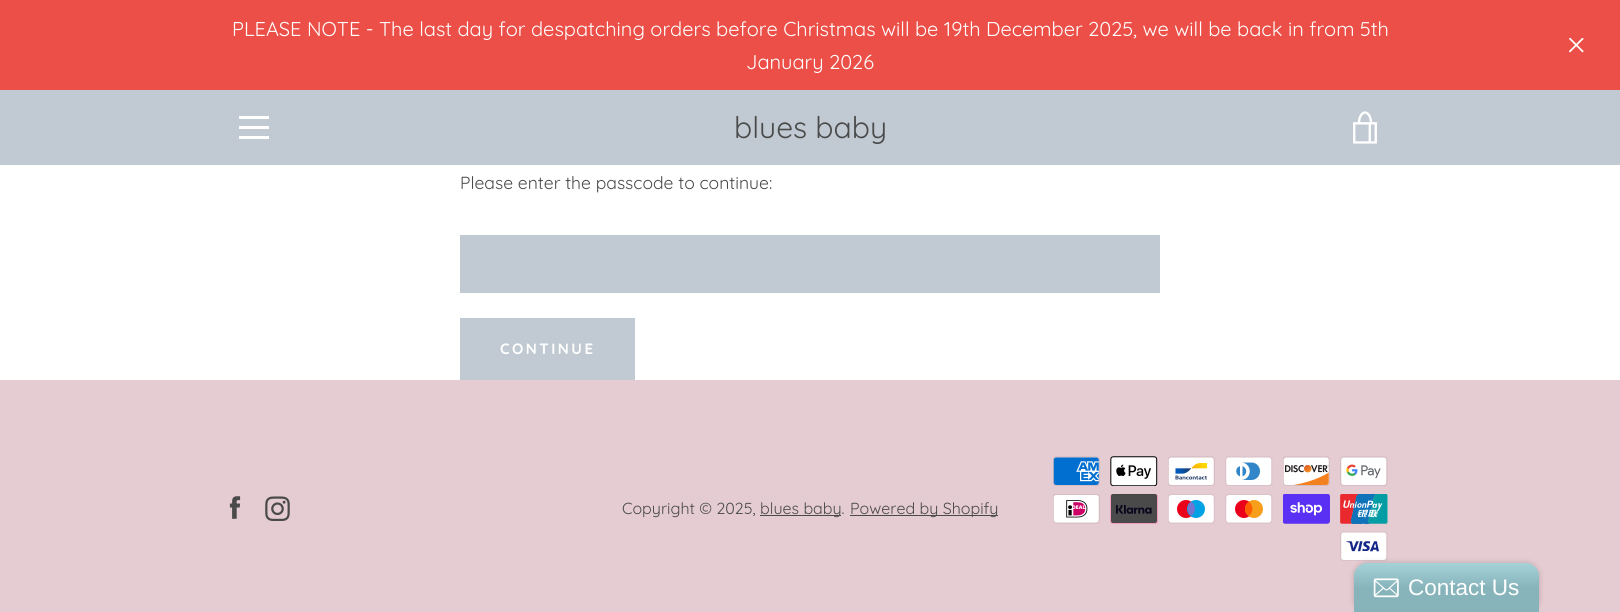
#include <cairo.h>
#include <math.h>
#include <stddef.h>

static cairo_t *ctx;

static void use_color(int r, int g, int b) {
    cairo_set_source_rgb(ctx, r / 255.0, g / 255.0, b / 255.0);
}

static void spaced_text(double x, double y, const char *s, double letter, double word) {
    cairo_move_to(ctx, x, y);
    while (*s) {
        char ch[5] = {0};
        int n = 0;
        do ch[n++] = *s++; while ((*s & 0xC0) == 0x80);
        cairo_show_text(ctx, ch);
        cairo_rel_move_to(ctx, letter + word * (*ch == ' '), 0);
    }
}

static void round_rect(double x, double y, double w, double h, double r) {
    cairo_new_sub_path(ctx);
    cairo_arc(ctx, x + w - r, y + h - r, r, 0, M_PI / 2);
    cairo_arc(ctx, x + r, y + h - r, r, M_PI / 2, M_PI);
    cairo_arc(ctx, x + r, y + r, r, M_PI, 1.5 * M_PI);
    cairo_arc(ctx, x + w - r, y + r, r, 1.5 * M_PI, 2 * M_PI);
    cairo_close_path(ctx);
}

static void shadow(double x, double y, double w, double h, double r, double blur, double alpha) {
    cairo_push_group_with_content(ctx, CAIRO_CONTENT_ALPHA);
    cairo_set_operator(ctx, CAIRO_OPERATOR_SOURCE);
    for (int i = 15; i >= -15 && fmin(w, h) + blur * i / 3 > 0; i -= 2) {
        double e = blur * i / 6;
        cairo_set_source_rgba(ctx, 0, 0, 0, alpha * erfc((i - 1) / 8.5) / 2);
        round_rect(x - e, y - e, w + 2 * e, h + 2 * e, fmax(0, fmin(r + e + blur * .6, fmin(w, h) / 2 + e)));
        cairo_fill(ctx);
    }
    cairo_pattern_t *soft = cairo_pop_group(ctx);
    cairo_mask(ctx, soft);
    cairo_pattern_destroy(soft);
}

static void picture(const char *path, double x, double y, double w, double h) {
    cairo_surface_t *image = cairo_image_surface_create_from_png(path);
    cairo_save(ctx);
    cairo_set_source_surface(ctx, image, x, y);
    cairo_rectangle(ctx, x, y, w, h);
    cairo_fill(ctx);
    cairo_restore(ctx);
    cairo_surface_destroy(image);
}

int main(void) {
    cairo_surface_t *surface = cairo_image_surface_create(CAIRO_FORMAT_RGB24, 1620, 612);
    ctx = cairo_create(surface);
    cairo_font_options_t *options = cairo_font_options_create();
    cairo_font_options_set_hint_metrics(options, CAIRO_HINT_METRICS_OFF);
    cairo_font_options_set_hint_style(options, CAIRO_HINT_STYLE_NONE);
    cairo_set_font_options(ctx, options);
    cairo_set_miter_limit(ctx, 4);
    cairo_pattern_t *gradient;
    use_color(229, 204, 210);
    cairo_paint(ctx);
    use_color(193, 202, 211);
    cairo_rectangle(ctx, 0, 90, 1620, 75);
    cairo_fill(ctx);
    use_color(235, 79, 71);
    cairo_rectangle(ctx, 0, 0, 1620, 90);
    cairo_fill(ctx);
    cairo_select_font_face(ctx, "Quicksand", CAIRO_FONT_SLANT_NORMAL, CAIRO_FONT_WEIGHT_NORMAL);
    cairo_set_font_size(ctx, 20);
    use_color(255, 255, 255);
    cairo_move_to(ctx, 232, 36);
    cairo_show_text(ctx, "PLEASE NOTE - The last day for despatching orders before Christmas will be 19th December 2025, we will be back in from 5th");
    cairo_move_to(ctx, 746, 69);
    cairo_show_text(ctx, "January 2026");
    picture("img1.png", 1569, 38, 15, 15);
    cairo_rectangle(ctx, 239, 116, 30, 3);
    cairo_fill(ctx);
    cairo_rectangle(ctx, 239, 126, 30, 3);
    cairo_fill(ctx);
    cairo_rectangle(ctx, 239, 136, 30, 3);
    cairo_fill(ctx);
    cairo_set_font_size(ctx, 30);
    use_color(74, 74, 74);
    cairo_move_to(ctx, 734, 138);
    cairo_show_text(ctx, "blues baby");
    picture("img2.png", 1353, 111, 24, 33);
    use_color(255, 255, 255);
    cairo_rectangle(ctx, 0, 165, 1620, 215);
    cairo_fill(ctx);
    cairo_set_font_size(ctx, 17.5);
    use_color(74, 74, 74);
    cairo_move_to(ctx, 460, 189);
    cairo_show_text(ctx, "Please enter the passcode to continue:");
    use_color(193, 202, 211);
    cairo_rectangle(ctx, 460, 235, 700, 58);
    cairo_fill(ctx);
    cairo_rectangle(ctx, 460, 318, 175, 62);
    cairo_fill(ctx);
    cairo_select_font_face(ctx, "Quicksand", CAIRO_FONT_SLANT_NORMAL, CAIRO_FONT_WEIGHT_BOLD);
    cairo_set_font_size(ctx, 15);
    use_color(255, 255, 255);
    spaced_text(500, 354, "CONTINUE", 2.5, 0);
    picture("img3.png", 229, 496, 12, 23);
    picture("img4.png", 265, 496, 25, 25);
    cairo_select_font_face(ctx, "Quicksand", CAIRO_FONT_SLANT_NORMAL, CAIRO_FONT_WEIGHT_NORMAL);
    cairo_set_font_size(ctx, 16);
    use_color(74, 74, 74);
    cairo_move_to(ctx, 622, 514);
    cairo_show_text(ctx, "Copyright © 2025,");
    cairo_rectangle(ctx, 760, 515, 81, 1);
    cairo_fill(ctx);
    cairo_move_to(ctx, 760, 514);
    cairo_show_text(ctx, "blues baby.");
    cairo_rectangle(ctx, 850, 515, 148, 1);
    cairo_fill(ctx);
    cairo_move_to(ctx, 850, 514);
    cairo_show_text(ctx, "Powered by Shopify");
    picture("img5.png", 1053, 456, 47, 30);
    picture("img6.png", 1110, 456, 48, 30);
    picture("img7.png", 1168, 456, 47, 30);
    picture("img8.png", 1225, 456, 48, 30);
    picture("img9.png", 1283, 456, 47, 30);
    picture("img10.png", 1340, 456, 48, 30);
    picture("img11.png", 1053, 494, 47, 30);
    picture("img12.png", 1110, 494, 48, 30);
    picture("img13.png", 1168, 494, 47, 30);
    picture("img14.png", 1225, 494, 48, 30);
    picture("img15.png", 1283, 494, 47, 30);
    picture("img16.png", 1340, 494, 48, 30);
    picture("img17.png", 1340, 531, 48, 30);
    use_color(0, 0, 0);
    shadow(1354, 563, 185, 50, 13, 3, 0.2);
    gradient = cairo_pattern_create_linear(1446, 563, 1446, 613);
    cairo_pattern_add_color_stop_rgba(gradient, 0, 0.647, 0.824, 0.847, 1);
    cairo_pattern_add_color_stop_rgba(gradient, 0.5, 0.529, 0.706, 0.729, 1);
    cairo_set_source(ctx, gradient);
    cairo_pattern_destroy(gradient);
    cairo_new_path(ctx);
    cairo_move_to(ctx, 1367, 563);
    cairo_line_to(ctx, 1526, 563);
    cairo_curve_to(ctx, 1533, 563, 1539, 569, 1539, 576);
    cairo_line_to(ctx, 1539, 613);
    cairo_line_to(ctx, 1354, 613);
    cairo_line_to(ctx, 1354, 576);
    cairo_curve_to(ctx, 1354, 569, 1360, 563, 1367, 563);
    cairo_close_path(ctx);
    cairo_fill(ctx);
    picture("img18.png", 1373, 578, 26, 20);
    cairo_select_font_face(ctx, "Liberation Sans", CAIRO_FONT_SLANT_NORMAL, CAIRO_FONT_WEIGHT_NORMAL);
    cairo_set_font_size(ctx, 22.5);
    use_color(255, 255, 255);
    cairo_move_to(ctx, 1408, 595);
    cairo_show_text(ctx, "Contact Us");
    cairo_surface_write_to_png(surface, "result.png");
    cairo_font_options_destroy(options);
    cairo_destroy(ctx);
    cairo_surface_destroy(surface);
    return 0;
}
